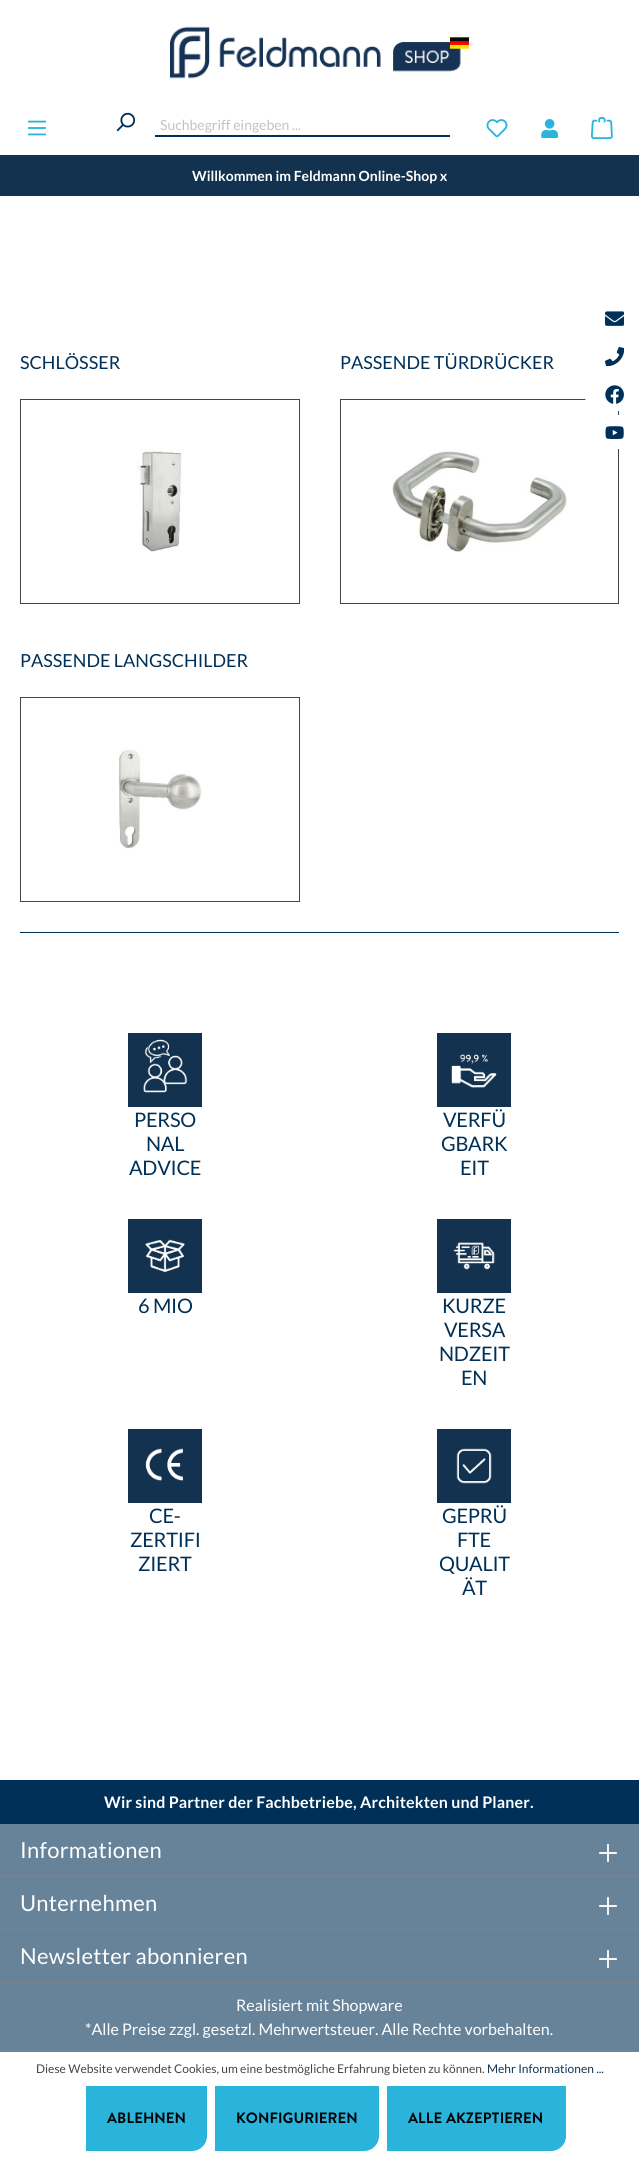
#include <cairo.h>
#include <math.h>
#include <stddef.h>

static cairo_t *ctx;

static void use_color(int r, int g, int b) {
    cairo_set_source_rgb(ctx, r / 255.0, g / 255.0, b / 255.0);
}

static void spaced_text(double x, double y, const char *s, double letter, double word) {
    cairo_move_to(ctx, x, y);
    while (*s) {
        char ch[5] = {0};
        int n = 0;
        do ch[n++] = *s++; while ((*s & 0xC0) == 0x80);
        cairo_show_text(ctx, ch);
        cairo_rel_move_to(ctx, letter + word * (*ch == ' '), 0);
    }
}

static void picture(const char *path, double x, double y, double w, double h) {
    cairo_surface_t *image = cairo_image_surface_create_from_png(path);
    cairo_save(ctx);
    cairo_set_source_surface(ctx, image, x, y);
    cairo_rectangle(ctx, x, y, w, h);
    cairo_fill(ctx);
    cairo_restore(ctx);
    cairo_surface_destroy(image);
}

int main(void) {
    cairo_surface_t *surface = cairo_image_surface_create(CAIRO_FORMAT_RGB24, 639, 2159);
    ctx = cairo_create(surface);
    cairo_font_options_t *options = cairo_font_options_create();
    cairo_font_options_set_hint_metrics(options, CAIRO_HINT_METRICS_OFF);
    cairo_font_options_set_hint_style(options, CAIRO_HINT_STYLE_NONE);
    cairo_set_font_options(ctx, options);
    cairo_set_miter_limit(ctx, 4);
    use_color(255, 255, 255);
    cairo_paint(ctx);
    picture("img1.png", 170, 26, 299, 53);
    picture("img2.png", 27, 120, 20, 16);
    picture("img3.png", 116, 112, 20, 20);
    use_color(0, 48, 87);
    cairo_rectangle(ctx, 155, 135, 295, 2);
    cairo_fill(ctx);
    cairo_select_font_face(ctx, "Lato", CAIRO_FONT_SLANT_NORMAL, CAIRO_FONT_WEIGHT_NORMAL);
    cairo_set_font_size(ctx, 14);
    use_color(194, 194, 194);
    cairo_move_to(ctx, 160, 130);
    cairo_show_text(ctx, "Suchbegriff eingeben ...");
    picture("img4.png", 486, 119, 22, 19);
    picture("img5.png", 541, 119, 18, 19);
    picture("img6.png", 591, 117, 22, 22);
    use_color(18, 50, 79);
    cairo_rectangle(ctx, 0, 155, 639, 41);
    cairo_fill(ctx);
    cairo_select_font_face(ctx, "Lato", CAIRO_FONT_SLANT_NORMAL, CAIRO_FONT_WEIGHT_BOLD);
    use_color(255, 255, 255);
    cairo_move_to(ctx, 192, 181);
    cairo_show_text(ctx, "Willkommen im Feldmann Online-Shop x");
    cairo_select_font_face(ctx, "Lato", CAIRO_FONT_SLANT_NORMAL, CAIRO_FONT_WEIGHT_NORMAL);
    cairo_set_font_size(ctx, 18);
    use_color(0, 48, 87);
    cairo_move_to(ctx, 20, 369);
    cairo_show_text(ctx, "SCHLÖSSER");
    cairo_rectangle(ctx, 20.5, 399.5, 279, 204);
    use_color(69, 69, 69);
    cairo_set_line_width(ctx, 1);
    cairo_stroke(ctx);
    picture("img7.png", 137, 449, 46, 103);
    use_color(0, 48, 87);
    cairo_move_to(ctx, 340, 369);
    cairo_show_text(ctx, "PASSENDE TÜRDRÜCKER");
    cairo_rectangle(ctx, 340.5, 399.5, 278, 204);
    use_color(69, 69, 69);
    cairo_stroke(ctx);
    picture("img8.png", 392, 451, 175, 101);
    use_color(0, 48, 87);
    cairo_move_to(ctx, 20, 667);
    cairo_show_text(ctx, "PASSENDE LANGSCHILDER");
    cairo_rectangle(ctx, 20.5, 697.5, 279, 204);
    use_color(69, 69, 69);
    cairo_stroke(ctx);
    picture("img9.png", 118, 748, 84, 101);
    use_color(0, 48, 87);
    cairo_rectangle(ctx, 20, 932, 599, 1);
    cairo_fill(ctx);
    picture("img10.png", 128, 1033, 74, 74);
    cairo_set_font_size(ctx, 20);
    spaced_text(134, 1127, "PERSO", -0.25, 0);
    spaced_text(146, 1151, "NAL", -0.25, 0);
    spaced_text(129, 1175, "ADVICE", -0.25, 0);
    picture("img11.png", 437, 1033, 74, 74);
    spaced_text(443, 1127, "VERFÜ", -0.25, 0);
    spaced_text(441, 1151, "GBARK", -0.25, 0);
    spaced_text(460, 1175, "EIT", -0.25, 0);
    picture("img12.png", 128, 1219, 74, 74);
    spaced_text(138, 1313, "6 MIO", -0.25, 0);
    picture("img13.png", 437, 1219, 74, 74);
    spaced_text(442, 1313, "KURZE", -0.25, 0);
    spaced_text(444, 1337, "VERSA", -0.25, 0);
    spaced_text(439, 1361, "NDZEIT", -0.25, 0);
    spaced_text(461, 1385, "EN", -0.25, 0);
    picture("img14.png", 128, 1429, 74, 74);
    spaced_text(149, 1523, "CE-", -0.25, 0);
    spaced_text(130, 1547, "ZERTIFI", -0.25, 0);
    spaced_text(138, 1571, "ZIERT", -0.25, 0);
    picture("img15.png", 437, 1429, 74, 74);
    spaced_text(442, 1523, "GEPRÜ", -0.25, 0);
    spaced_text(457, 1547, "FTE", -0.25, 0);
    spaced_text(439, 1571, "QUALIT", -0.25, 0);
    spaced_text(462, 1595, "ÄT", -0.25, 0);
    picture("img16.png", 605, 311, 19, 15);
    picture("img17.png", 605, 347, 19, 19);
    use_color(255, 255, 255);
    cairo_new_path(ctx);
    cairo_move_to(ctx, 600, 377);
    cairo_line_to(ctx, 639, 377);
    cairo_line_to(ctx, 639, 411);
    cairo_line_to(ctx, 600, 411);
    cairo_curve_to(ctx, 591.5, 411, 585, 404.5, 585, 396);
    cairo_line_to(ctx, 585, 392);
    cairo_curve_to(ctx, 585, 383.5, 591.5, 377, 600, 377);
    cairo_close_path(ctx);
    cairo_fill(ctx);
    picture("img18.png", 605, 385, 19, 19);
    cairo_new_path(ctx);
    cairo_move_to(ctx, 600, 415);
    cairo_line_to(ctx, 639, 415);
    cairo_line_to(ctx, 639, 449);
    cairo_line_to(ctx, 600, 449);
    cairo_curve_to(ctx, 591.5, 449, 585, 442.5, 585, 434);
    cairo_line_to(ctx, 585, 430);
    cairo_curve_to(ctx, 585, 421.5, 591.5, 415, 600, 415);
    cairo_close_path(ctx);
    cairo_fill(ctx);
    picture("img19.png", 605, 426, 19, 14);
    use_color(0, 48, 87);
    cairo_rectangle(ctx, 0, 1780, 639, 44);
    cairo_fill(ctx);
    cairo_select_font_face(ctx, "Lato", CAIRO_FONT_SLANT_NORMAL, CAIRO_FONT_WEIGHT_BOLD);
    cairo_set_font_size(ctx, 16);
    use_color(255, 255, 255);
    spaced_text(104, 1808, "Wir sind Partner der Fachbetriebe, Architekten und Planer.", 0.15, 0);
    use_color(102, 131, 154);
    cairo_rectangle(ctx, 0, 1824, 639, 158);
    cairo_fill(ctx);
    use_color(121, 132, 144);
    cairo_rectangle(ctx, 0, 1876, 639, 1);
    cairo_fill(ctx);
    cairo_select_font_face(ctx, "Lato", CAIRO_FONT_SLANT_NORMAL, CAIRO_FONT_WEIGHT_NORMAL);
    cairo_set_font_size(ctx, 22);
    use_color(255, 255, 255);
    spaced_text(20, 1858, "Informationen", 0.25, 0);
    picture("img20.png", 598, 1843, 20, 20);
    use_color(121, 132, 144);
    cairo_rectangle(ctx, 0, 1929, 639, 1);
    cairo_fill(ctx);
    use_color(255, 255, 255);
    spaced_text(20, 1911, "Unternehmen", 0.25, 0);
    picture("img20.png", 598, 1896, 20, 20);
    use_color(121, 132, 144);
    cairo_rectangle(ctx, 0, 1982, 639, 1);
    cairo_fill(ctx);
    use_color(255, 255, 255);
    spaced_text(20, 1964, "Newsletter abonnieren", 0.25, 0);
    picture("img20.png", 598, 1949, 20, 20);
    use_color(102, 131, 154);
    cairo_rectangle(ctx, 0, 1983, 639, 68);
    cairo_fill(ctx);
    cairo_set_font_size(ctx, 16);
    use_color(255, 255, 255);
    cairo_move_to(ctx, 236, 2011);
    cairo_show_text(ctx, "Realisiert mit Shopware");
    cairo_move_to(ctx, 85, 2035);
    cairo_show_text(ctx, "*Alle Preise zzgl. gesetzl. Mehrwertsteuer. Alle Rechte vorbehalten.");
    use_color(121, 132, 144);
    cairo_rectangle(ctx, 0, 2051, 639, 1);
    cairo_fill(ctx);
    cairo_set_font_size(ctx, 12);
    use_color(69, 69, 69);
    cairo_move_to(ctx, 36, 2073);
    cairo_show_text(ctx, "Diese Website verwendet Cookies, um eine bestmögliche Erfahrung bieten zu können.");
    use_color(18, 50, 79);
    cairo_move_to(ctx, 487, 2073);
    cairo_show_text(ctx, "Mehr Informationen ...");
    use_color(42, 180, 219);
    cairo_new_path(ctx);
    cairo_move_to(ctx, 86.5, 2086.5);
    cairo_line_to(ctx, 206.5, 2086.5);
    cairo_line_to(ctx, 206.5, 2136);
    cairo_curve_to(ctx, 206.5, 2144, 200, 2150.5, 192, 2150.5);
    cairo_line_to(ctx, 86.5, 2150.5);
    cairo_close_path(ctx);
    cairo_fill_preserve(ctx);
    cairo_stroke(ctx);
    cairo_select_font_face(ctx, "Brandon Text", CAIRO_FONT_SLANT_NORMAL, CAIRO_FONT_WEIGHT_BOLD);
    cairo_set_font_size(ctx, 15);
    use_color(0, 0, 0);
    spaced_text(107, 2123, "ABLEHNEN", 0.1, 0);
    use_color(42, 180, 219);
    cairo_new_path(ctx);
    cairo_move_to(ctx, 215.5, 2086.5);
    cairo_line_to(ctx, 378.5, 2086.5);
    cairo_line_to(ctx, 378.5, 2136);
    cairo_curve_to(ctx, 378.5, 2144, 372, 2150.5, 364, 2150.5);
    cairo_line_to(ctx, 215.5, 2150.5);
    cairo_close_path(ctx);
    cairo_fill_preserve(ctx);
    cairo_stroke(ctx);
    use_color(0, 0, 0);
    spaced_text(236, 2123, "KONFIGURIEREN", 0.1, 0);
    use_color(42, 180, 219);
    cairo_new_path(ctx);
    cairo_move_to(ctx, 387.5, 2086.5);
    cairo_line_to(ctx, 565.5, 2086.5);
    cairo_line_to(ctx, 565.5, 2136);
    cairo_curve_to(ctx, 565.5, 2144, 559, 2150.5, 551, 2150.5);
    cairo_line_to(ctx, 387.5, 2150.5);
    cairo_close_path(ctx);
    cairo_fill_preserve(ctx);
    cairo_stroke(ctx);
    use_color(0, 0, 0);
    spaced_text(408, 2123, "ALLE AKZEPTIEREN", 0.1, 0);
    cairo_surface_write_to_png(surface, "result.png");
    cairo_font_options_destroy(options);
    cairo_destroy(ctx);
    cairo_surface_destroy(surface);
    return 0;
}
